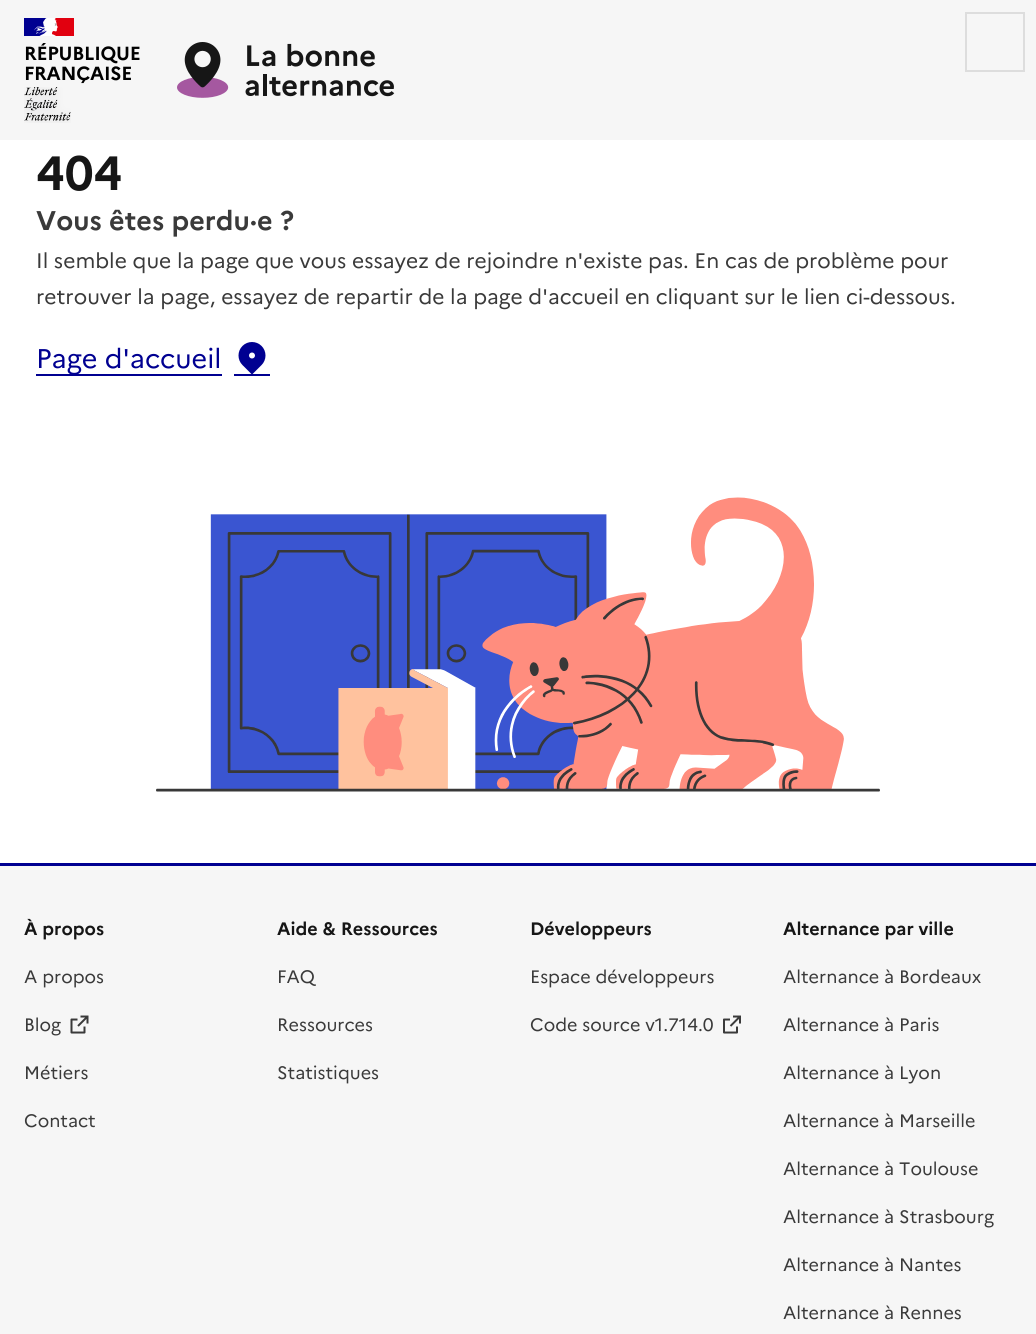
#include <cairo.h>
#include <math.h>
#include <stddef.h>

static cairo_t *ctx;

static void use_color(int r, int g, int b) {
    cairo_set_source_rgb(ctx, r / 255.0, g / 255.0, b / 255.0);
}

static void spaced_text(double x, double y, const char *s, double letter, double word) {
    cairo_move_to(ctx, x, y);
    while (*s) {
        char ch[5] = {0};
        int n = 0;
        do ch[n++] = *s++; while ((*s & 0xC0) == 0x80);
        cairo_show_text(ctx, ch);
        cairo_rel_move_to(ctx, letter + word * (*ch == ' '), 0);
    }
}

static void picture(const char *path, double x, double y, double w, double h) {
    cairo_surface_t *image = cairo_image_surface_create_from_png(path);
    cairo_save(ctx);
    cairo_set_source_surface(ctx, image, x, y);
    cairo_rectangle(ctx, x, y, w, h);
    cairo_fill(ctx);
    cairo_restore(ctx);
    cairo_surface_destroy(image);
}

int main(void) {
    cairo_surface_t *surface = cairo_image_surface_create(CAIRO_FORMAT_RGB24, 1036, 1334);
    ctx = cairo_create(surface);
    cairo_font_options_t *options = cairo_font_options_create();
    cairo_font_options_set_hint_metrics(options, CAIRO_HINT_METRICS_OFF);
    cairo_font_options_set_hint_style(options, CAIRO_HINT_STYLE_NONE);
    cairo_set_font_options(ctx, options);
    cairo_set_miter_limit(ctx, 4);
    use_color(255, 255, 255);
    cairo_paint(ctx);
    use_color(246, 246, 246);
    cairo_rectangle(ctx, 0, 0, 1036, 140);
    cairo_fill(ctx);
    use_color(0, 0, 145);
    cairo_rectangle(ctx, 24, 18, 23, 18);
    cairo_fill(ctx);
    use_color(225, 0, 15);
    cairo_rectangle(ctx, 51, 18, 23, 18);
    cairo_fill(ctx);
    picture("img1.png", 34, 18, 24, 18);
    cairo_select_font_face(ctx, "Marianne", CAIRO_FONT_SLANT_NORMAL, CAIRO_FONT_WEIGHT_BOLD);
    cairo_set_font_size(ctx, 19);
    use_color(0, 0, 0);
    spaced_text(24, 60, "RÉPUBLIQUE", -0.25, 0);
    spaced_text(24, 80, "FRANÇAISE", -0.25, 0);
    picture("img2.png", 24, 87, 47, 36);
    picture("img3.png", 177, 42, 218, 56);
    cairo_rectangle(ctx, 966, 13, 58, 58);
    use_color(221, 221, 221);
    cairo_stroke(ctx);
    cairo_set_font_size(ctx, 48);
    use_color(22, 22, 22);
    cairo_move_to(ctx, 36, 190);
    cairo_show_text(ctx, "404");
    cairo_set_font_size(ctx, 27);
    use_color(58, 58, 58);
    cairo_move_to(ctx, 36, 230);
    cairo_show_text(ctx, "Vous êtes perdu·e ?");
    cairo_select_font_face(ctx, "Marianne", CAIRO_FONT_SLANT_NORMAL, CAIRO_FONT_WEIGHT_NORMAL);
    cairo_set_font_size(ctx, 21);
    cairo_move_to(ctx, 36, 268);
    cairo_show_text(ctx, "Il semble que la page que vous essayez de rejoindre n'existe pas. En cas de problème pour");
    cairo_move_to(ctx, 36, 304);
    cairo_show_text(ctx, "retrouver la page, essayez de repartir de la page d'accueil en cliquant sur le lien ci-dessous.");
    use_color(0, 0, 145);
    cairo_rectangle(ctx, 36, 374, 186, 2);
    cairo_fill(ctx);
    cairo_rectangle(ctx, 234, 374, 36, 2);
    cairo_fill(ctx);
    cairo_set_font_size(ctx, 27);
    cairo_move_to(ctx, 36, 368);
    cairo_show_text(ctx, "Page d'accueil");
    picture("img4.png", 238, 342, 28, 32);
    picture("img5.png", 156, 497, 724, 295);
    cairo_rectangle(ctx, 0, 863, 1036, 3);
    cairo_fill(ctx);
    use_color(246, 246, 246);
    cairo_rectangle(ctx, 0, 866, 1036, 468);
    cairo_fill(ctx);
    cairo_select_font_face(ctx, "Marianne", CAIRO_FONT_SLANT_NORMAL, CAIRO_FONT_WEIGHT_BOLD);
    cairo_set_font_size(ctx, 18);
    use_color(22, 22, 22);
    cairo_move_to(ctx, 24, 935);
    cairo_show_text(ctx, "À propos");
    cairo_select_font_face(ctx, "Marianne", CAIRO_FONT_SLANT_NORMAL, CAIRO_FONT_WEIGHT_NORMAL);
    use_color(58, 58, 58);
    cairo_move_to(ctx, 24, 983);
    cairo_show_text(ctx, "A propos");
    cairo_move_to(ctx, 24, 1031);
    cairo_show_text(ctx, "Blog");
    picture("img6.png", 70, 1015, 19, 19);
    cairo_move_to(ctx, 24, 1079);
    cairo_show_text(ctx, "Métiers");
    cairo_move_to(ctx, 24, 1127);
    cairo_show_text(ctx, "Contact");
    cairo_select_font_face(ctx, "Marianne", CAIRO_FONT_SLANT_NORMAL, CAIRO_FONT_WEIGHT_BOLD);
    use_color(22, 22, 22);
    cairo_move_to(ctx, 277, 935);
    cairo_show_text(ctx, "Aide & Ressources");
    cairo_select_font_face(ctx, "Marianne", CAIRO_FONT_SLANT_NORMAL, CAIRO_FONT_WEIGHT_NORMAL);
    use_color(58, 58, 58);
    cairo_move_to(ctx, 277, 983);
    cairo_show_text(ctx, "FAQ");
    cairo_move_to(ctx, 277, 1031);
    cairo_show_text(ctx, "Ressources");
    cairo_move_to(ctx, 277, 1079);
    cairo_show_text(ctx, "Statistiques");
    cairo_select_font_face(ctx, "Marianne", CAIRO_FONT_SLANT_NORMAL, CAIRO_FONT_WEIGHT_BOLD);
    use_color(22, 22, 22);
    cairo_move_to(ctx, 530, 935);
    cairo_show_text(ctx, "Développeurs");
    cairo_select_font_face(ctx, "Marianne", CAIRO_FONT_SLANT_NORMAL, CAIRO_FONT_WEIGHT_NORMAL);
    use_color(58, 58, 58);
    cairo_move_to(ctx, 530, 983);
    cairo_show_text(ctx, "Espace développeurs");
    cairo_move_to(ctx, 530, 1031);
    cairo_show_text(ctx, "Code source v1.714.0");
    picture("img7.png", 723, 1015, 18, 19);
    cairo_select_font_face(ctx, "Marianne", CAIRO_FONT_SLANT_NORMAL, CAIRO_FONT_WEIGHT_BOLD);
    use_color(22, 22, 22);
    cairo_move_to(ctx, 783, 935);
    cairo_show_text(ctx, "Alternance par ville");
    cairo_select_font_face(ctx, "Marianne", CAIRO_FONT_SLANT_NORMAL, CAIRO_FONT_WEIGHT_NORMAL);
    use_color(58, 58, 58);
    cairo_move_to(ctx, 783, 983);
    cairo_show_text(ctx, "Alternance à Bordeaux");
    cairo_move_to(ctx, 783, 1031);
    cairo_show_text(ctx, "Alternance à Paris");
    cairo_move_to(ctx, 783, 1079);
    cairo_show_text(ctx, "Alternance à Lyon");
    cairo_move_to(ctx, 783, 1127);
    cairo_show_text(ctx, "Alternance à Marseille");
    cairo_move_to(ctx, 783, 1175);
    cairo_show_text(ctx, "Alternance à Toulouse");
    cairo_move_to(ctx, 783, 1223);
    cairo_show_text(ctx, "Alternance à Strasbourg");
    cairo_move_to(ctx, 783, 1271);
    cairo_show_text(ctx, "Alternance à Nantes");
    cairo_move_to(ctx, 783, 1319);
    cairo_show_text(ctx, "Alternance à Rennes");
    cairo_surface_write_to_png(surface, "result.png");
    cairo_font_options_destroy(options);
    cairo_destroy(ctx);
    cairo_surface_destroy(surface);
    return 0;
}
